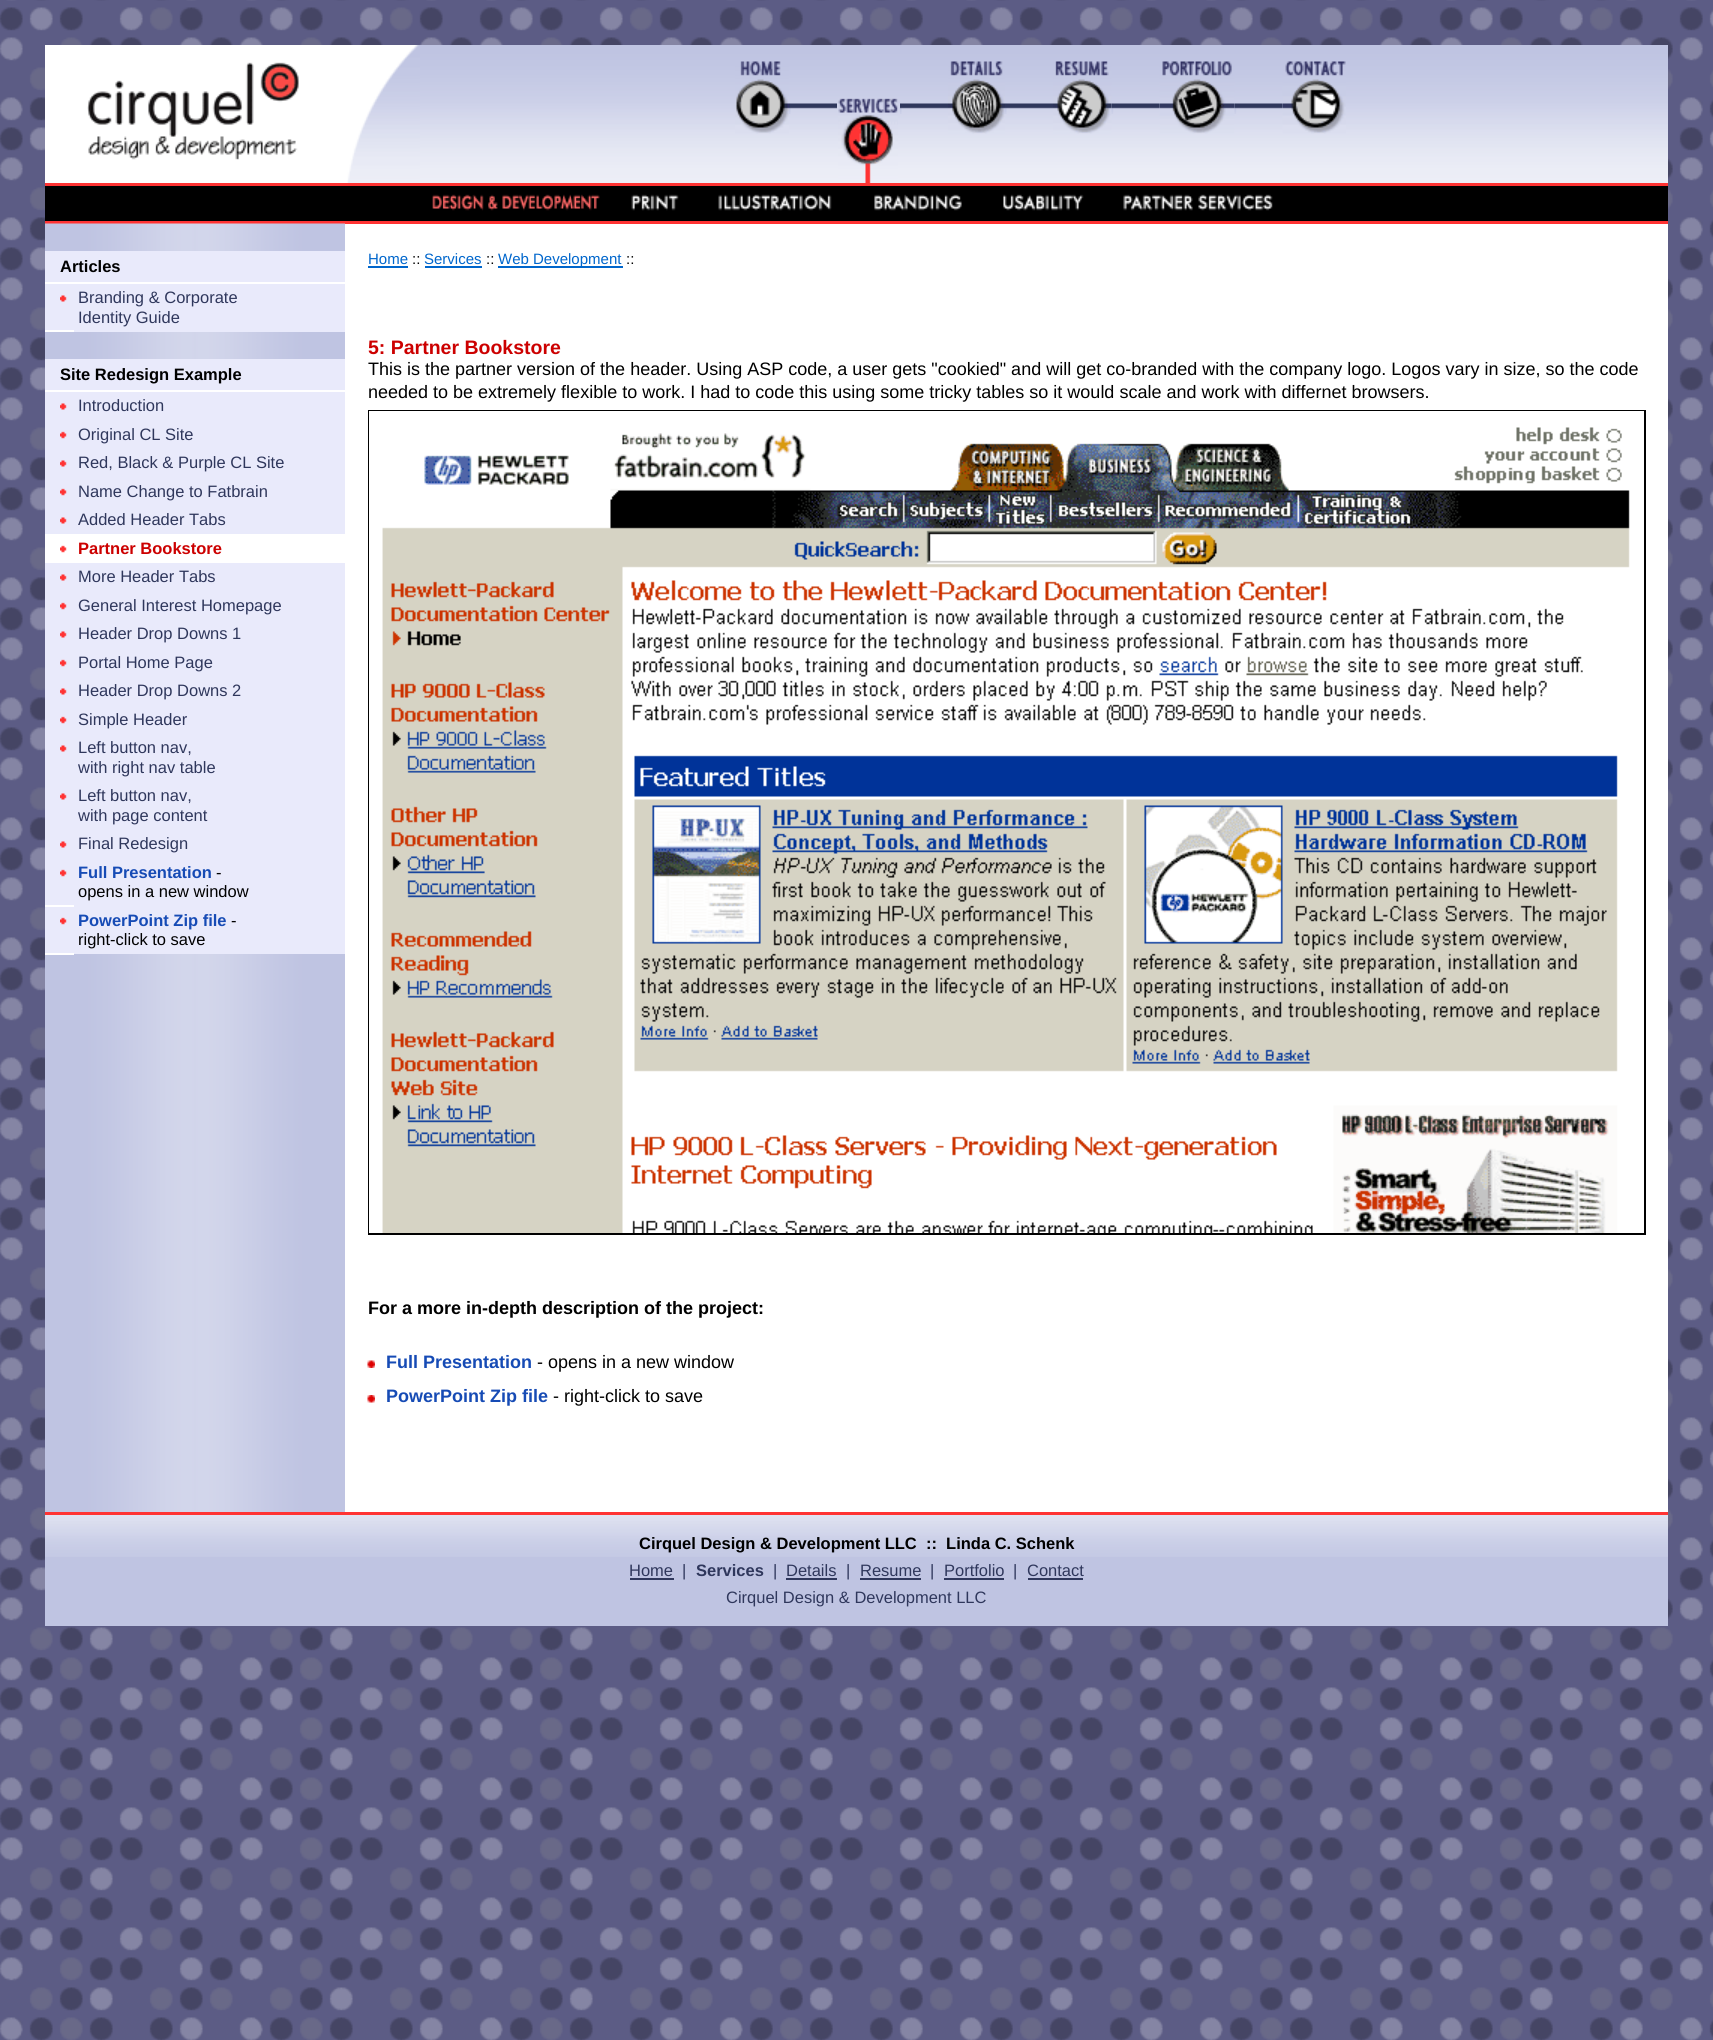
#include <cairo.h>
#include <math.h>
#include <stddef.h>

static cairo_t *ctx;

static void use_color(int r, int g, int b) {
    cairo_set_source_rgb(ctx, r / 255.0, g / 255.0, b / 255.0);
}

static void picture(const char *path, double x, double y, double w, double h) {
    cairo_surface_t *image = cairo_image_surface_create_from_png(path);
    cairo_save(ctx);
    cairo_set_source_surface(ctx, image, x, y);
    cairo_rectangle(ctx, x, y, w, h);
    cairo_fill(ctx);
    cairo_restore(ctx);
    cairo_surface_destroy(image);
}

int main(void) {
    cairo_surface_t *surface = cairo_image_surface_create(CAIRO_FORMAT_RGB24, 1713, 2040);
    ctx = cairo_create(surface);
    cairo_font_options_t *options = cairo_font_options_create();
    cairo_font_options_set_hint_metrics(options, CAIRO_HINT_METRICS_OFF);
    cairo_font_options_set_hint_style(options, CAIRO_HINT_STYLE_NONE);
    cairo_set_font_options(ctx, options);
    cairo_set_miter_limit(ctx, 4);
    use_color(255, 255, 255);
    cairo_paint(ctx);
    picture("img1.png", 0, 0, 1713, 2040);
    use_color(255, 255, 255);
    cairo_rectangle(ctx, 45, 45, 302, 138);
    cairo_fill(ctx);
    picture("img2.png", 87, 62, 212, 98);
    picture("img3.png", 347, 45, 73, 138);
    picture("img4.png", 420, 45, 1248, 138);
    picture("img5.png", 735, 61, 54, 73);
    picture("img6.png", 789, 103, 48, 11);
    picture("img7.png", 838, 98, 60, 85);
    picture("img6.png", 900, 103, 48, 11);
    picture("img8.png", 948, 61, 57, 73);
    picture("img6.png", 1005, 103, 48, 11);
    picture("img9.png", 1053, 61, 59, 73);
    picture("img10.png", 1111, 103, 49, 11);
    picture("img11.png", 1159, 61, 76, 73);
    picture("img12.png", 1234, 103, 49, 11);
    picture("img13.png", 1282, 61, 64, 73);
    use_color(219, 221, 237);
    cairo_rectangle(ctx, 758, 133, 11, 1);
    cairo_fill(ctx);
    cairo_set_source_rgba(ctx, 0.875, 0.882, 0.945, 0.5);
    cairo_rectangle(ctx, 974, 133, 11, 1);
    cairo_fill(ctx);
    cairo_rectangle(ctx, 1079, 133, 11, 1);
    cairo_fill(ctx);
    cairo_rectangle(ctx, 1194, 133, 11, 1);
    cairo_fill(ctx);
    cairo_rectangle(ctx, 1314, 133, 10, 1);
    cairo_fill(ctx);
    use_color(255, 51, 51);
    cairo_rectangle(ctx, 45, 183, 1623, 3);
    cairo_fill(ctx);
    use_color(0, 0, 0);
    cairo_rectangle(ctx, 45, 186, 1623, 35);
    cairo_fill(ctx);
    picture("img14.png", 432, 194, 168, 17);
    picture("img15.png", 631, 194, 48, 17);
    picture("img16.png", 718, 194, 114, 17);
    picture("img17.png", 874, 194, 88, 17);
    picture("img18.png", 1003, 194, 81, 17);
    picture("img19.png", 1123, 194, 150, 17);
    use_color(255, 51, 51);
    cairo_rectangle(ctx, 45, 221, 1623, 3);
    cairo_fill(ctx);
    use_color(255, 255, 255);
    cairo_rectangle(ctx, 345, 224, 1323, 1288);
    cairo_fill(ctx);
    picture("img20.png", 45, 223, 300, 1289);
    use_color(233, 234, 251);
    cairo_rectangle(ctx, 45, 251, 300, 81);
    cairo_fill(ctx);
    use_color(255, 255, 255);
    cairo_rectangle(ctx, 45, 282, 300, 2);
    cairo_fill(ctx);
    cairo_select_font_face(ctx, "Liberation Sans", CAIRO_FONT_SLANT_NORMAL, CAIRO_FONT_WEIGHT_BOLD);
    cairo_set_font_size(ctx, 16.5);
    use_color(0, 0, 0);
    cairo_move_to(ctx, 60, 272);
    cairo_show_text(ctx, "Articles");
    use_color(255, 255, 255);
    cairo_rectangle(ctx, 45, 330, 29, 2);
    cairo_fill(ctx);
    picture("img21.png", 60, 295, 7, 7);
    cairo_select_font_face(ctx, "Liberation Sans", CAIRO_FONT_SLANT_NORMAL, CAIRO_FONT_WEIGHT_NORMAL);
    use_color(47, 55, 92);
    cairo_move_to(ctx, 78, 303);
    cairo_show_text(ctx, "Branding & Corporate");
    cairo_move_to(ctx, 78, 323);
    cairo_show_text(ctx, "Identity Guide");
    use_color(233, 234, 251);
    cairo_rectangle(ctx, 45, 359, 300, 595);
    cairo_fill(ctx);
    use_color(255, 255, 255);
    cairo_rectangle(ctx, 45, 390, 300, 2);
    cairo_fill(ctx);
    cairo_select_font_face(ctx, "Liberation Sans", CAIRO_FONT_SLANT_NORMAL, CAIRO_FONT_WEIGHT_BOLD);
    use_color(0, 0, 0);
    cairo_move_to(ctx, 60, 380);
    cairo_show_text(ctx, "Site Redesign Example");
    picture("img21.png", 60, 403, 7, 7);
    cairo_select_font_face(ctx, "Liberation Sans", CAIRO_FONT_SLANT_NORMAL, CAIRO_FONT_WEIGHT_NORMAL);
    use_color(47, 55, 92);
    cairo_move_to(ctx, 78, 411);
    cairo_show_text(ctx, "Introduction");
    picture("img22.png", 60, 431, 7, 8);
    cairo_move_to(ctx, 78, 440);
    cairo_show_text(ctx, "Original CL Site");
    picture("img21.png", 60, 460, 7, 7);
    cairo_move_to(ctx, 78, 468);
    cairo_show_text(ctx, "Red, Black & Purple CL Site");
    picture("img22.png", 60, 488, 7, 8);
    cairo_move_to(ctx, 78, 497);
    cairo_show_text(ctx, "Name Change to Fatbrain");
    picture("img21.png", 60, 517, 7, 7);
    cairo_move_to(ctx, 78, 525);
    cairo_show_text(ctx, "Added Header Tabs");
    use_color(255, 255, 255);
    cairo_rectangle(ctx, 45, 534, 300, 29);
    cairo_fill(ctx);
    picture("img23.png", 60, 545, 7, 8);
    cairo_select_font_face(ctx, "Liberation Sans", CAIRO_FONT_SLANT_NORMAL, CAIRO_FONT_WEIGHT_BOLD);
    use_color(204, 0, 0);
    cairo_move_to(ctx, 78, 554);
    cairo_show_text(ctx, "Partner Bookstore");
    picture("img21.png", 60, 574, 7, 7);
    cairo_select_font_face(ctx, "Liberation Sans", CAIRO_FONT_SLANT_NORMAL, CAIRO_FONT_WEIGHT_NORMAL);
    use_color(47, 55, 92);
    cairo_move_to(ctx, 78, 582);
    cairo_show_text(ctx, "More Header Tabs");
    picture("img22.png", 60, 602, 7, 8);
    cairo_move_to(ctx, 78, 611);
    cairo_show_text(ctx, "General Interest Homepage");
    picture("img21.png", 60, 631, 7, 7);
    cairo_move_to(ctx, 78, 639);
    cairo_show_text(ctx, "Header Drop Downs 1");
    picture("img22.png", 60, 659, 7, 8);
    cairo_move_to(ctx, 78, 668);
    cairo_show_text(ctx, "Portal Home Page");
    picture("img21.png", 60, 688, 7, 7);
    cairo_move_to(ctx, 78, 696);
    cairo_show_text(ctx, "Header Drop Downs 2");
    picture("img22.png", 60, 716, 7, 8);
    cairo_move_to(ctx, 78, 725);
    cairo_show_text(ctx, "Simple Header");
    picture("img21.png", 60, 745, 7, 7);
    cairo_move_to(ctx, 78, 753);
    cairo_show_text(ctx, "Left button nav,");
    cairo_move_to(ctx, 78, 773);
    cairo_show_text(ctx, "with right nav table");
    picture("img21.png", 60, 793, 7, 7);
    cairo_move_to(ctx, 78, 801);
    cairo_show_text(ctx, "Left button nav,");
    cairo_move_to(ctx, 78, 821);
    cairo_show_text(ctx, "with page content");
    picture("img21.png", 60, 841, 7, 7);
    cairo_move_to(ctx, 78, 849);
    cairo_show_text(ctx, "Final Redesign");
    use_color(255, 255, 255);
    cairo_rectangle(ctx, 45, 905, 29, 2);
    cairo_fill(ctx);
    picture("img22.png", 60, 869, 7, 8);
    cairo_select_font_face(ctx, "Liberation Sans", CAIRO_FONT_SLANT_NORMAL, CAIRO_FONT_WEIGHT_BOLD);
    use_color(22, 75, 181);
    cairo_move_to(ctx, 78, 878);
    cairo_show_text(ctx, "Full Presentation");
    cairo_select_font_face(ctx, "Liberation Sans", CAIRO_FONT_SLANT_NORMAL, CAIRO_FONT_WEIGHT_NORMAL);
    use_color(0, 0, 0);
    cairo_move_to(ctx, 216, 878);
    cairo_show_text(ctx, "-");
    cairo_move_to(ctx, 78, 897);
    cairo_show_text(ctx, "opens in a new window");
    use_color(255, 255, 255);
    cairo_rectangle(ctx, 45, 953, 29, 2);
    cairo_fill(ctx);
    picture("img22.png", 60, 917, 7, 8);
    cairo_select_font_face(ctx, "Liberation Sans", CAIRO_FONT_SLANT_NORMAL, CAIRO_FONT_WEIGHT_BOLD);
    use_color(22, 75, 181);
    cairo_move_to(ctx, 78, 926);
    cairo_show_text(ctx, "PowerPoint Zip file");
    cairo_select_font_face(ctx, "Liberation Sans", CAIRO_FONT_SLANT_NORMAL, CAIRO_FONT_WEIGHT_NORMAL);
    use_color(0, 0, 0);
    cairo_move_to(ctx, 231, 926);
    cairo_show_text(ctx, "-");
    cairo_move_to(ctx, 78, 945);
    cairo_show_text(ctx, "right-click to save");
    cairo_set_font_size(ctx, 15);
    use_color(0, 102, 204);
    cairo_move_to(ctx, 368, 264);
    cairo_show_text(ctx, "Home");
    cairo_rectangle(ctx, 368, 266, 40, 2);
    cairo_fill(ctx);
    use_color(0, 0, 0);
    cairo_move_to(ctx, 412, 264);
    cairo_show_text(ctx, "::");
    use_color(0, 102, 204);
    cairo_move_to(ctx, 424, 264);
    cairo_show_text(ctx, "Services");
    cairo_rectangle(ctx, 425, 266, 57, 2);
    cairo_fill(ctx);
    use_color(0, 0, 0);
    cairo_move_to(ctx, 486, 264);
    cairo_show_text(ctx, "::");
    use_color(0, 102, 204);
    cairo_rectangle(ctx, 498, 266, 125, 2);
    cairo_fill(ctx);
    cairo_move_to(ctx, 498, 264);
    cairo_show_text(ctx, "Web Development");
    use_color(0, 0, 0);
    cairo_move_to(ctx, 626, 264);
    cairo_show_text(ctx, "::");
    cairo_select_font_face(ctx, "Liberation Sans", CAIRO_FONT_SLANT_NORMAL, CAIRO_FONT_WEIGHT_BOLD);
    cairo_set_font_size(ctx, 19.5);
    use_color(204, 0, 0);
    cairo_move_to(ctx, 368, 354);
    cairo_show_text(ctx, "5: Partner Bookstore");
    cairo_select_font_face(ctx, "Liberation Sans", CAIRO_FONT_SLANT_NORMAL, CAIRO_FONT_WEIGHT_NORMAL);
    cairo_set_font_size(ctx, 18);
    use_color(0, 0, 0);
    cairo_move_to(ctx, 368, 375);
    cairo_show_text(ctx, "This is the partner version of the header. Using ASP code, a user gets \"cookied\" and will get co-branded with the company logo. Logos vary in size, so the code");
    cairo_move_to(ctx, 368, 398);
    cairo_show_text(ctx, "needed to be extremely flexible to work. I had to code this using some tricky tables so it would scale and work with differnet browsers.");
    cairo_rectangle(ctx, 369, 411, 1276, 823);
    cairo_stroke(ctx);
    picture("img24.png", 369, 411, 1275, 822);
    cairo_select_font_face(ctx, "Liberation Sans", CAIRO_FONT_SLANT_NORMAL, CAIRO_FONT_WEIGHT_BOLD);
    cairo_move_to(ctx, 368, 1314);
    cairo_show_text(ctx, "For a more in-depth description of the project:");
    picture("img25.png", 367, 1360, 8, 8);
    use_color(22, 75, 181);
    cairo_move_to(ctx, 386, 1368);
    cairo_show_text(ctx, "Full Presentation");
    cairo_select_font_face(ctx, "Liberation Sans", CAIRO_FONT_SLANT_NORMAL, CAIRO_FONT_WEIGHT_NORMAL);
    use_color(0, 0, 0);
    cairo_move_to(ctx, 537, 1368);
    cairo_show_text(ctx, "- opens in a new window");
    picture("img26.png", 367, 1395, 8, 8);
    cairo_select_font_face(ctx, "Liberation Sans", CAIRO_FONT_SLANT_NORMAL, CAIRO_FONT_WEIGHT_BOLD);
    use_color(22, 75, 181);
    cairo_move_to(ctx, 386, 1402);
    cairo_show_text(ctx, "PowerPoint Zip file");
    cairo_select_font_face(ctx, "Liberation Sans", CAIRO_FONT_SLANT_NORMAL, CAIRO_FONT_WEIGHT_NORMAL);
    use_color(0, 0, 0);
    cairo_move_to(ctx, 553, 1402);
    cairo_show_text(ctx, "- right-click to save");
    use_color(255, 51, 51);
    cairo_rectangle(ctx, 45, 1512, 1623, 3);
    cairo_fill(ctx);
    use_color(191, 196, 226);
    cairo_rectangle(ctx, 45, 1557, 1623, 69);
    cairo_fill(ctx);
    picture("img27.png", 45, 1515, 1623, 42);
    cairo_select_font_face(ctx, "Liberation Sans", CAIRO_FONT_SLANT_NORMAL, CAIRO_FONT_WEIGHT_BOLD);
    cairo_set_font_size(ctx, 16.5);
    use_color(0, 0, 0);
    cairo_move_to(ctx, 639, 1549);
    cairo_show_text(ctx, "Cirquel Design & Development LLC  ::  Linda C. Schenk");
    cairo_select_font_face(ctx, "Liberation Sans", CAIRO_FONT_SLANT_NORMAL, CAIRO_FONT_WEIGHT_NORMAL);
    use_color(47, 55, 92);
    cairo_move_to(ctx, 629, 1576);
    cairo_show_text(ctx, "Home");
    cairo_rectangle(ctx, 630, 1578, 44, 2);
    cairo_fill(ctx);
    cairo_move_to(ctx, 682, 1576);
    cairo_show_text(ctx, "|");
    cairo_select_font_face(ctx, "Liberation Sans", CAIRO_FONT_SLANT_NORMAL, CAIRO_FONT_WEIGHT_BOLD);
    cairo_move_to(ctx, 696, 1576);
    cairo_show_text(ctx, "Services");
    cairo_select_font_face(ctx, "Liberation Sans", CAIRO_FONT_SLANT_NORMAL, CAIRO_FONT_WEIGHT_NORMAL);
    cairo_move_to(ctx, 773, 1576);
    cairo_show_text(ctx, "|");
    cairo_move_to(ctx, 786, 1576);
    cairo_show_text(ctx, "Details");
    cairo_rectangle(ctx, 786, 1578, 51, 2);
    cairo_fill(ctx);
    cairo_move_to(ctx, 846, 1576);
    cairo_show_text(ctx, "|");
    cairo_move_to(ctx, 860, 1576);
    cairo_show_text(ctx, "Resume");
    cairo_rectangle(ctx, 860, 1578, 61, 2);
    cairo_fill(ctx);
    cairo_move_to(ctx, 930, 1576);
    cairo_show_text(ctx, "|");
    cairo_move_to(ctx, 944, 1576);
    cairo_show_text(ctx, "Portfolio");
    cairo_rectangle(ctx, 944, 1578, 60, 2);
    cairo_fill(ctx);
    cairo_move_to(ctx, 1013, 1576);
    cairo_show_text(ctx, "|");
    cairo_move_to(ctx, 1027, 1576);
    cairo_show_text(ctx, "Contact");
    cairo_rectangle(ctx, 1028, 1578, 55, 2);
    cairo_fill(ctx);
    cairo_move_to(ctx, 726, 1603);
    cairo_show_text(ctx, "Cirquel Design & Development LLC");
    cairo_surface_write_to_png(surface, "result.png");
    cairo_font_options_destroy(options);
    cairo_destroy(ctx);
    cairo_surface_destroy(surface);
    return 0;
}
